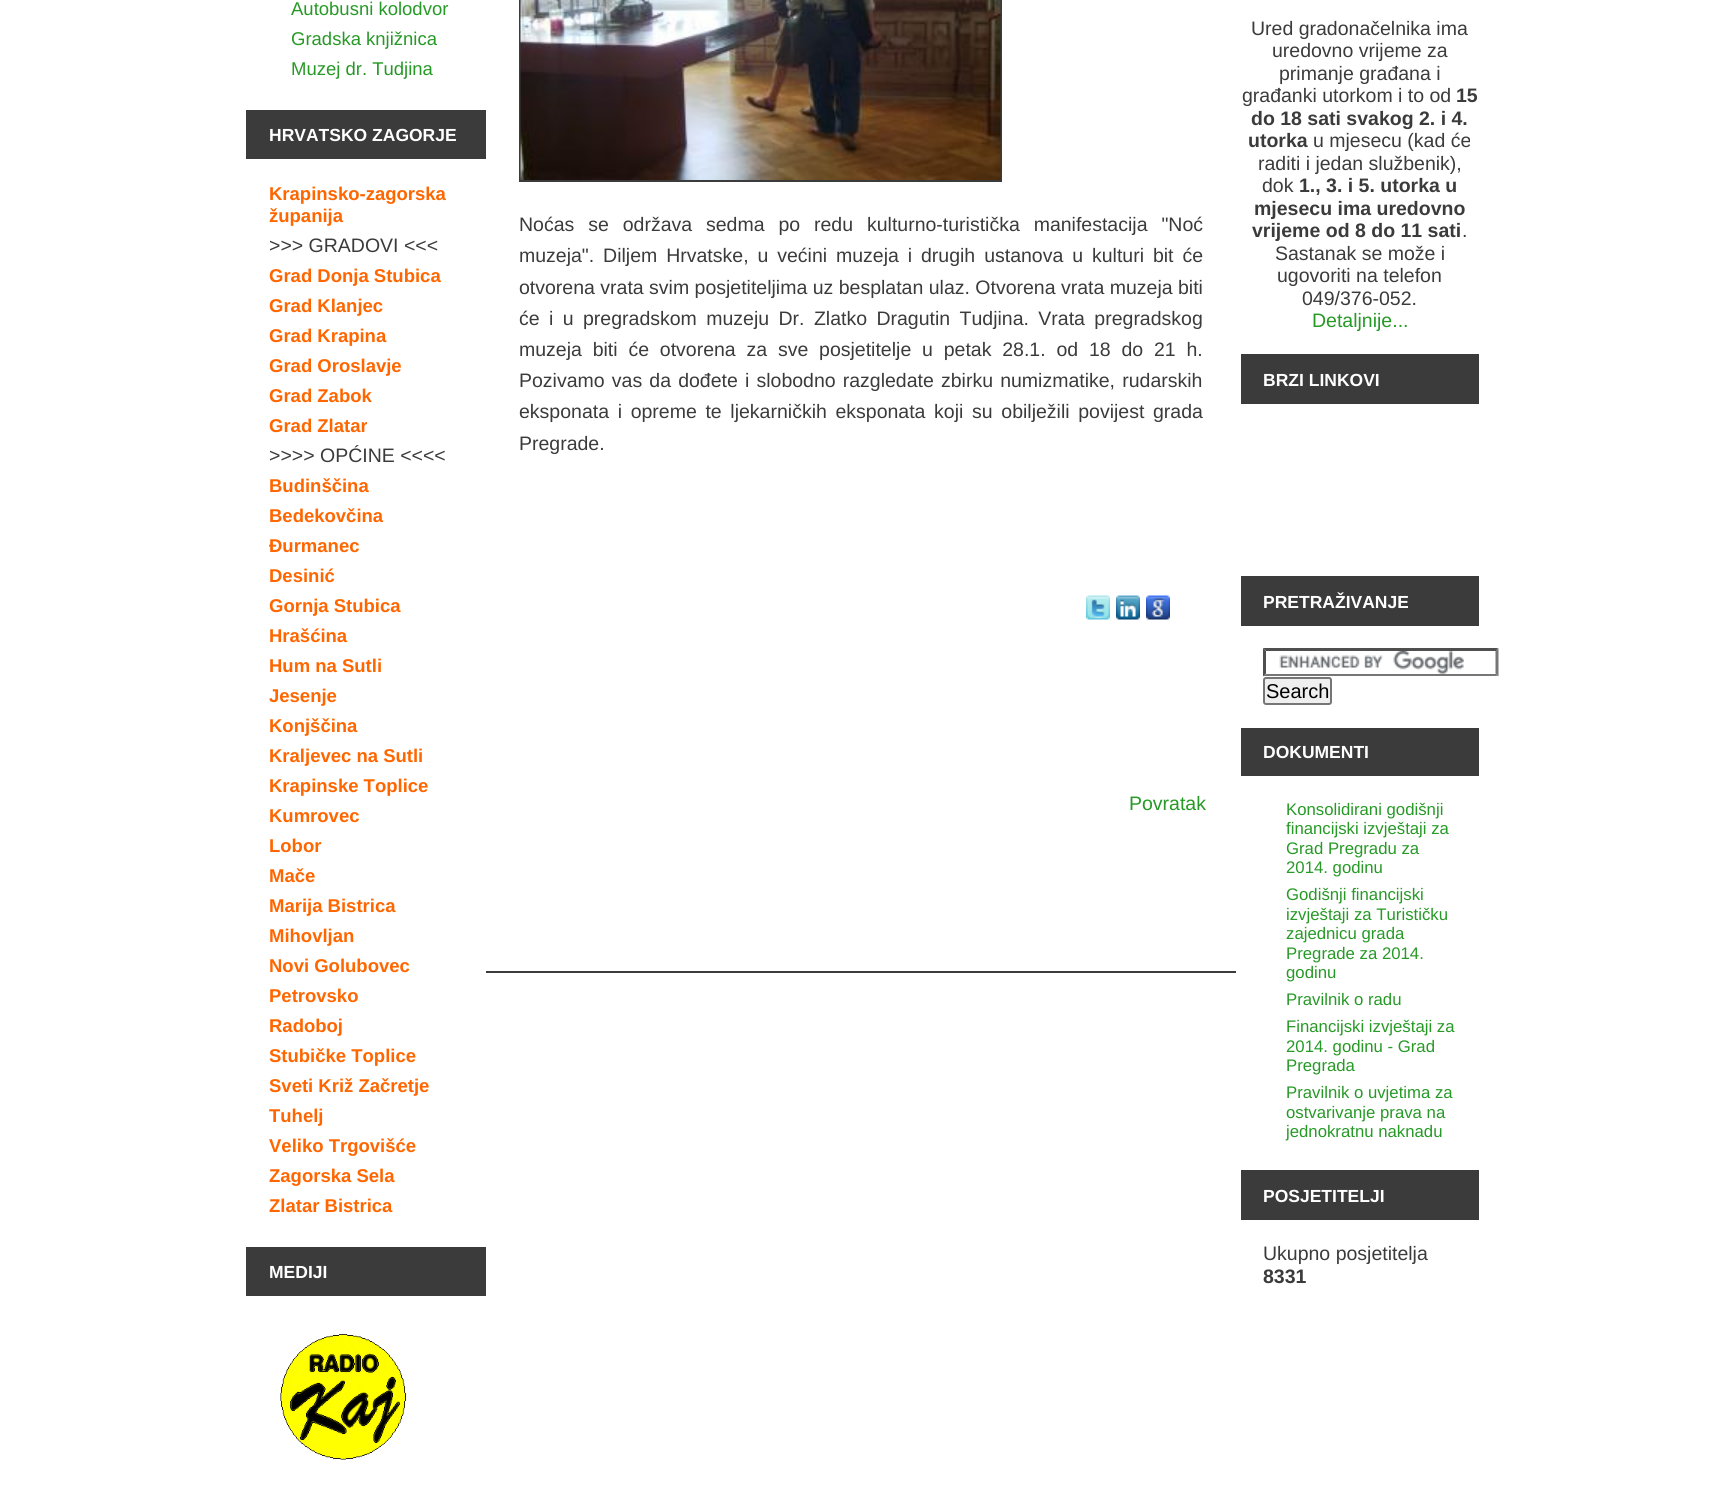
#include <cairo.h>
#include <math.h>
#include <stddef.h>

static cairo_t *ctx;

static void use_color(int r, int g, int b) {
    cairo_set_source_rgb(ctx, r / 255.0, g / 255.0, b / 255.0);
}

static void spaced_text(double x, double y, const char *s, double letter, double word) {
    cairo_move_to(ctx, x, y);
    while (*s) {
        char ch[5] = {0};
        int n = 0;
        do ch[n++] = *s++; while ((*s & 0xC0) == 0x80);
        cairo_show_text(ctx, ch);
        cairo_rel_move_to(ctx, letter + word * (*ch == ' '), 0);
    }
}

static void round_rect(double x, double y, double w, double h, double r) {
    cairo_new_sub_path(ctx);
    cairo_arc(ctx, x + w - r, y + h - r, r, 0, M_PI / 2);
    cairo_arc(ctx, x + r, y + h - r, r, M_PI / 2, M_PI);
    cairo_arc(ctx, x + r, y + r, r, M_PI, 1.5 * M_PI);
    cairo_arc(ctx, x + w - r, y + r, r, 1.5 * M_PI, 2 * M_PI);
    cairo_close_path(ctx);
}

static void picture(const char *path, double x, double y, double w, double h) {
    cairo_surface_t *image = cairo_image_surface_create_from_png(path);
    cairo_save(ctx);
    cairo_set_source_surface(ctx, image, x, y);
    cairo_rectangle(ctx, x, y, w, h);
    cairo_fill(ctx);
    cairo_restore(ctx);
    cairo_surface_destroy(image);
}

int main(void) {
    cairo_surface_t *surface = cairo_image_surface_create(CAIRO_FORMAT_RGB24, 1725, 1486);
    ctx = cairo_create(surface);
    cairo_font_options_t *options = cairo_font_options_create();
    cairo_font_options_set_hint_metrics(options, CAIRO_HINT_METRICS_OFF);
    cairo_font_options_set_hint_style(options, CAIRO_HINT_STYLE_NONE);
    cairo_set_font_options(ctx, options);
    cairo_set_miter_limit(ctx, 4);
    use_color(255, 255, 255);
    cairo_paint(ctx);
    cairo_select_font_face(ctx, "Liberation Sans", CAIRO_FONT_SLANT_NORMAL, CAIRO_FONT_WEIGHT_NORMAL);
    cairo_set_font_size(ctx, 18.5);
    use_color(38, 153, 38);
    cairo_move_to(ctx, 291, 15);
    cairo_show_text(ctx, "Autobusni kolodvor");
    cairo_move_to(ctx, 291, 45);
    cairo_show_text(ctx, "Gradska knjižnica");
    cairo_move_to(ctx, 291, 75);
    cairo_show_text(ctx, "Muzej dr. Tudjina");
    use_color(59, 59, 59);
    cairo_rectangle(ctx, 246, 110, 240, 49);
    cairo_fill(ctx);
    cairo_select_font_face(ctx, "Liberation Sans", CAIRO_FONT_SLANT_NORMAL, CAIRO_FONT_WEIGHT_BOLD);
    cairo_set_font_size(ctx, 17.5);
    use_color(255, 255, 255);
    cairo_move_to(ctx, 269, 141);
    cairo_show_text(ctx, "HRVATSKO ZAGORJE");
    cairo_set_font_size(ctx, 18.5);
    use_color(255, 102, 0);
    cairo_move_to(ctx, 269, 200);
    cairo_show_text(ctx, "Krapinsko-zagorska");
    cairo_move_to(ctx, 269, 222);
    cairo_show_text(ctx, "županija");
    cairo_select_font_face(ctx, "Liberation Sans", CAIRO_FONT_SLANT_NORMAL, CAIRO_FONT_WEIGHT_NORMAL);
    cairo_set_font_size(ctx, 19.5);
    use_color(59, 59, 59);
    cairo_move_to(ctx, 269, 252);
    cairo_show_text(ctx, ">>> GRADOVI <<<");
    cairo_select_font_face(ctx, "Liberation Sans", CAIRO_FONT_SLANT_NORMAL, CAIRO_FONT_WEIGHT_BOLD);
    cairo_set_font_size(ctx, 18.5);
    use_color(255, 102, 0);
    cairo_move_to(ctx, 269, 282);
    cairo_show_text(ctx, "Grad Donja Stubica");
    cairo_move_to(ctx, 269, 312);
    cairo_show_text(ctx, "Grad Klanjec");
    cairo_move_to(ctx, 269, 342);
    cairo_show_text(ctx, "Grad Krapina");
    cairo_move_to(ctx, 269, 372);
    cairo_show_text(ctx, "Grad Oroslavje");
    cairo_move_to(ctx, 269, 402);
    cairo_show_text(ctx, "Grad Zabok");
    cairo_move_to(ctx, 269, 432);
    cairo_show_text(ctx, "Grad Zlatar");
    cairo_select_font_face(ctx, "Liberation Sans", CAIRO_FONT_SLANT_NORMAL, CAIRO_FONT_WEIGHT_NORMAL);
    cairo_set_font_size(ctx, 19.5);
    use_color(59, 59, 59);
    cairo_move_to(ctx, 269, 462);
    cairo_show_text(ctx, ">>>> OPĆINE <<<<");
    cairo_select_font_face(ctx, "Liberation Sans", CAIRO_FONT_SLANT_NORMAL, CAIRO_FONT_WEIGHT_BOLD);
    cairo_set_font_size(ctx, 18.5);
    use_color(255, 102, 0);
    cairo_move_to(ctx, 269, 492);
    cairo_show_text(ctx, "Budinščina");
    cairo_move_to(ctx, 269, 522);
    cairo_show_text(ctx, "Bedekovčina");
    cairo_move_to(ctx, 269, 552);
    cairo_show_text(ctx, "Đurmanec");
    cairo_move_to(ctx, 269, 582);
    cairo_show_text(ctx, "Desinić");
    cairo_move_to(ctx, 269, 612);
    cairo_show_text(ctx, "Gornja Stubica");
    cairo_move_to(ctx, 269, 642);
    cairo_show_text(ctx, "Hrašćina");
    cairo_move_to(ctx, 269, 672);
    cairo_show_text(ctx, "Hum na Sutli");
    cairo_move_to(ctx, 269, 702);
    cairo_show_text(ctx, "Jesenje");
    cairo_move_to(ctx, 269, 732);
    cairo_show_text(ctx, "Konjščina");
    cairo_move_to(ctx, 269, 762);
    cairo_show_text(ctx, "Kraljevec na Sutli");
    cairo_move_to(ctx, 269, 792);
    cairo_show_text(ctx, "Krapinske Toplice");
    cairo_move_to(ctx, 269, 822);
    cairo_show_text(ctx, "Kumrovec");
    cairo_move_to(ctx, 269, 852);
    cairo_show_text(ctx, "Lobor");
    cairo_move_to(ctx, 269, 882);
    cairo_show_text(ctx, "Mače");
    cairo_move_to(ctx, 269, 912);
    cairo_show_text(ctx, "Marija Bistrica");
    cairo_move_to(ctx, 269, 942);
    cairo_show_text(ctx, "Mihovljan");
    cairo_move_to(ctx, 269, 972);
    cairo_show_text(ctx, "Novi Golubovec");
    cairo_move_to(ctx, 269, 1002);
    cairo_show_text(ctx, "Petrovsko");
    cairo_move_to(ctx, 269, 1032);
    cairo_show_text(ctx, "Radoboj");
    cairo_move_to(ctx, 269, 1062);
    cairo_show_text(ctx, "Stubičke Toplice");
    cairo_move_to(ctx, 269, 1092);
    cairo_show_text(ctx, "Sveti Križ Začretje");
    cairo_move_to(ctx, 269, 1122);
    cairo_show_text(ctx, "Tuhelj");
    cairo_move_to(ctx, 269, 1152);
    cairo_show_text(ctx, "Veliko Trgovišće");
    cairo_move_to(ctx, 269, 1182);
    cairo_show_text(ctx, "Zagorska Sela");
    cairo_move_to(ctx, 269, 1212);
    cairo_show_text(ctx, "Zlatar Bistrica");
    use_color(59, 59, 59);
    cairo_rectangle(ctx, 246, 1247, 240, 49);
    cairo_fill(ctx);
    cairo_set_font_size(ctx, 17.5);
    use_color(255, 255, 255);
    cairo_move_to(ctx, 269, 1278);
    cairo_show_text(ctx, "MEDIJI");
    picture("img1.png", 280, 1334, 126, 126);
    use_color(59, 59, 59);
    cairo_rectangle(ctx, 486, 971, 750, 2);
    cairo_fill(ctx);
    cairo_rectangle(ctx, 520, -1, 481, 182);
    cairo_stroke(ctx);
    picture("img2.png", 520, 0, 481, 180);
    cairo_select_font_face(ctx, "Liberation Sans", CAIRO_FONT_SLANT_NORMAL, CAIRO_FONT_WEIGHT_NORMAL);
    cairo_set_font_size(ctx, 19.5);
    spaced_text(519, 231, "Noćas se održava sedma po redu kulturno-turistička manifestacija \"Noć", 0, 8.5);
    spaced_text(519, 262, "muzeja\". Diljem Hrvatske, u većini muzeja i drugih ustanova u kulturi bit će", 0, 3.5);
    cairo_move_to(ctx, 519, 294);
    cairo_show_text(ctx, "otvorena vrata svim posjetiteljima uz besplatan ulaz. Otvorena vrata muzeja biti");
    spaced_text(519, 325, "će i u pregradskom muzeju Dr. Zlatko Dragutin Tudjina. Vrata pregradskog", 0, 4);
    spaced_text(519, 356, "muzeja biti će otvorena za sve posjetitelje u petak 28.1. od 18 do 21 h.", 0, 5.4);
    spaced_text(519, 387, "Pozivamo vas da dođete i slobodno razgledate zbirku numizmatike, rudarskih", 0, 1.75);
    spaced_text(519, 418, "eksponata i opreme te ljekarničkih eksponata koji su obilježili povijest grada", 0, 3.25);
    cairo_move_to(ctx, 519, 450);
    cairo_show_text(ctx, "Pregrade.");
    picture("img3.png", 1086, 595, 24, 25);
    picture("img4.png", 1116, 595, 24, 25);
    picture("img5.png", 1146, 595, 24, 25);
    use_color(38, 153, 38);
    cairo_move_to(ctx, 1129, 810);
    cairo_show_text(ctx, "Povratak");
    use_color(59, 59, 59);
    cairo_move_to(ctx, 1251, 35);
    cairo_show_text(ctx, "Ured gradonačelnika ima");
    cairo_move_to(ctx, 1272, 57);
    cairo_show_text(ctx, "uredovno vrijeme za");
    cairo_move_to(ctx, 1279, 80);
    cairo_show_text(ctx, "primanje građana i");
    cairo_move_to(ctx, 1242, 102);
    cairo_show_text(ctx, "građanki utorkom i to od");
    cairo_select_font_face(ctx, "Liberation Sans", CAIRO_FONT_SLANT_NORMAL, CAIRO_FONT_WEIGHT_BOLD);
    cairo_move_to(ctx, 1456, 102);
    cairo_show_text(ctx, "15");
    cairo_move_to(ctx, 1251, 125);
    cairo_show_text(ctx, "do 18 sati svakog 2. i 4.");
    cairo_move_to(ctx, 1248, 147);
    cairo_show_text(ctx, "utorka");
    cairo_select_font_face(ctx, "Liberation Sans", CAIRO_FONT_SLANT_NORMAL, CAIRO_FONT_WEIGHT_NORMAL);
    cairo_move_to(ctx, 1313, 147);
    cairo_show_text(ctx, "u mjesecu (kad će");
    cairo_move_to(ctx, 1258, 170);
    cairo_show_text(ctx, "raditi i jedan službenik),");
    cairo_move_to(ctx, 1262, 192);
    cairo_show_text(ctx, "dok");
    cairo_select_font_face(ctx, "Liberation Sans", CAIRO_FONT_SLANT_NORMAL, CAIRO_FONT_WEIGHT_BOLD);
    cairo_move_to(ctx, 1299, 192);
    cairo_show_text(ctx, "1., 3. i 5. utorka u");
    cairo_move_to(ctx, 1254, 215);
    cairo_show_text(ctx, "mjesecu ima uredovno");
    cairo_move_to(ctx, 1252, 237);
    cairo_show_text(ctx, "vrijeme od 8 do 11 sati");
    cairo_select_font_face(ctx, "Liberation Sans", CAIRO_FONT_SLANT_NORMAL, CAIRO_FONT_WEIGHT_NORMAL);
    cairo_move_to(ctx, 1462, 237);
    cairo_show_text(ctx, ".");
    cairo_move_to(ctx, 1275, 260);
    cairo_show_text(ctx, "Sastanak se može i");
    cairo_move_to(ctx, 1277, 282);
    cairo_show_text(ctx, "ugovoriti na telefon");
    cairo_move_to(ctx, 1302, 305);
    cairo_show_text(ctx, "049/376-052.");
    use_color(38, 153, 38);
    cairo_move_to(ctx, 1312, 327);
    cairo_show_text(ctx, "Detaljnije...");
    use_color(59, 59, 59);
    cairo_rectangle(ctx, 1241, 354, 238, 50);
    cairo_fill(ctx);
    cairo_select_font_face(ctx, "Liberation Sans", CAIRO_FONT_SLANT_NORMAL, CAIRO_FONT_WEIGHT_BOLD);
    cairo_set_font_size(ctx, 17.5);
    use_color(255, 255, 255);
    cairo_move_to(ctx, 1263, 386);
    cairo_show_text(ctx, "BRZI LINKOVI");
    use_color(59, 59, 59);
    cairo_rectangle(ctx, 1241, 576, 238, 50);
    cairo_fill(ctx);
    use_color(255, 255, 255);
    cairo_move_to(ctx, 1263, 608);
    cairo_show_text(ctx, "PRETRAŽIVANJE");
    picture("img6.png", 1279, 651, 185, 23);
    use_color(79, 79, 79);
    cairo_new_path(ctx);
    cairo_move_to(ctx, 1263, 648);
    cairo_line_to(ctx, 1498, 648);
    cairo_line_to(ctx, 1496, 651);
    cairo_line_to(ctx, 1266, 651);
    cairo_close_path(ctx);
    cairo_fill(ctx);
    use_color(118, 118, 118);
    cairo_new_path(ctx);
    cairo_move_to(ctx, 1498.5, 648);
    cairo_line_to(ctx, 1498.5, 676.5);
    cairo_line_to(ctx, 1495.5, 673.5);
    cairo_line_to(ctx, 1495.5, 651);
    cairo_close_path(ctx);
    cairo_fill(ctx);
    cairo_new_path(ctx);
    cairo_move_to(ctx, 1498, 676);
    cairo_line_to(ctx, 1263, 676);
    cairo_line_to(ctx, 1266, 674);
    cairo_line_to(ctx, 1496, 674);
    cairo_close_path(ctx);
    cairo_fill(ctx);
    use_color(79, 79, 79);
    cairo_new_path(ctx);
    cairo_move_to(ctx, 1263, 676.5);
    cairo_line_to(ctx, 1263, 648);
    cairo_line_to(ctx, 1266, 651);
    cairo_line_to(ctx, 1266, 673.5);
    cairo_close_path(ctx);
    cairo_fill(ctx);
    use_color(239, 239, 239);
    round_rect(1264, 678, 67, 26, 2);
    cairo_fill_preserve(ctx);
    use_color(118, 118, 118);
    cairo_stroke(ctx);
    cairo_select_font_face(ctx, "Liberation Sans", CAIRO_FONT_SLANT_NORMAL, CAIRO_FONT_WEIGHT_NORMAL);
    cairo_set_font_size(ctx, 20);
    use_color(0, 0, 0);
    cairo_move_to(ctx, 1266, 698);
    cairo_show_text(ctx, "Search");
    use_color(59, 59, 59);
    cairo_rectangle(ctx, 1241, 728, 238, 48);
    cairo_fill(ctx);
    cairo_select_font_face(ctx, "Liberation Sans", CAIRO_FONT_SLANT_NORMAL, CAIRO_FONT_WEIGHT_BOLD);
    cairo_set_font_size(ctx, 17.5);
    use_color(255, 255, 255);
    cairo_move_to(ctx, 1263, 758);
    cairo_show_text(ctx, "DOKUMENTI");
    cairo_select_font_face(ctx, "Liberation Sans", CAIRO_FONT_SLANT_NORMAL, CAIRO_FONT_WEIGHT_NORMAL);
    cairo_set_font_size(ctx, 16.75);
    use_color(38, 153, 38);
    cairo_move_to(ctx, 1286, 815);
    cairo_show_text(ctx, "Konsolidirani godišnji");
    cairo_move_to(ctx, 1286, 834);
    cairo_show_text(ctx, "financijski izvještaji za");
    cairo_move_to(ctx, 1286, 854);
    cairo_show_text(ctx, "Grad Pregradu za");
    cairo_move_to(ctx, 1286, 873);
    cairo_show_text(ctx, "2014. godinu");
    cairo_move_to(ctx, 1286, 900);
    cairo_show_text(ctx, "Godišnji financijski");
    cairo_move_to(ctx, 1286, 920);
    cairo_show_text(ctx, "izvještaji za Turističku");
    cairo_move_to(ctx, 1286, 939);
    cairo_show_text(ctx, "zajednicu grada");
    cairo_move_to(ctx, 1286, 959);
    cairo_show_text(ctx, "Pregrade za 2014.");
    cairo_move_to(ctx, 1286, 978);
    cairo_show_text(ctx, "godinu");
    cairo_move_to(ctx, 1286, 1005);
    cairo_show_text(ctx, "Pravilnik o radu");
    cairo_move_to(ctx, 1286, 1032);
    cairo_show_text(ctx, "Financijski izvještaji za");
    cairo_move_to(ctx, 1286, 1052);
    cairo_show_text(ctx, "2014. godinu - Grad");
    cairo_move_to(ctx, 1286, 1071);
    cairo_show_text(ctx, "Pregrada");
    cairo_move_to(ctx, 1286, 1098);
    cairo_show_text(ctx, "Pravilnik o uvjetima za");
    cairo_move_to(ctx, 1286, 1118);
    cairo_show_text(ctx, "ostvarivanje prava na");
    cairo_move_to(ctx, 1286, 1137);
    cairo_show_text(ctx, "jednokratnu naknadu");
    use_color(59, 59, 59);
    cairo_rectangle(ctx, 1241, 1170, 238, 50);
    cairo_fill(ctx);
    cairo_select_font_face(ctx, "Liberation Sans", CAIRO_FONT_SLANT_NORMAL, CAIRO_FONT_WEIGHT_BOLD);
    cairo_set_font_size(ctx, 17.5);
    use_color(255, 255, 255);
    cairo_move_to(ctx, 1263, 1202);
    cairo_show_text(ctx, "POSJETITELJI");
    cairo_select_font_face(ctx, "Liberation Sans", CAIRO_FONT_SLANT_NORMAL, CAIRO_FONT_WEIGHT_NORMAL);
    cairo_set_font_size(ctx, 19.5);
    use_color(59, 59, 59);
    cairo_move_to(ctx, 1263, 1260);
    cairo_show_text(ctx, "Ukupno posjetitelja");
    cairo_select_font_face(ctx, "Liberation Sans", CAIRO_FONT_SLANT_NORMAL, CAIRO_FONT_WEIGHT_BOLD);
    cairo_move_to(ctx, 1263, 1283);
    cairo_show_text(ctx, "8331");
    cairo_surface_write_to_png(surface, "result.png");
    cairo_font_options_destroy(options);
    cairo_destroy(ctx);
    cairo_surface_destroy(surface);
    return 0;
}
